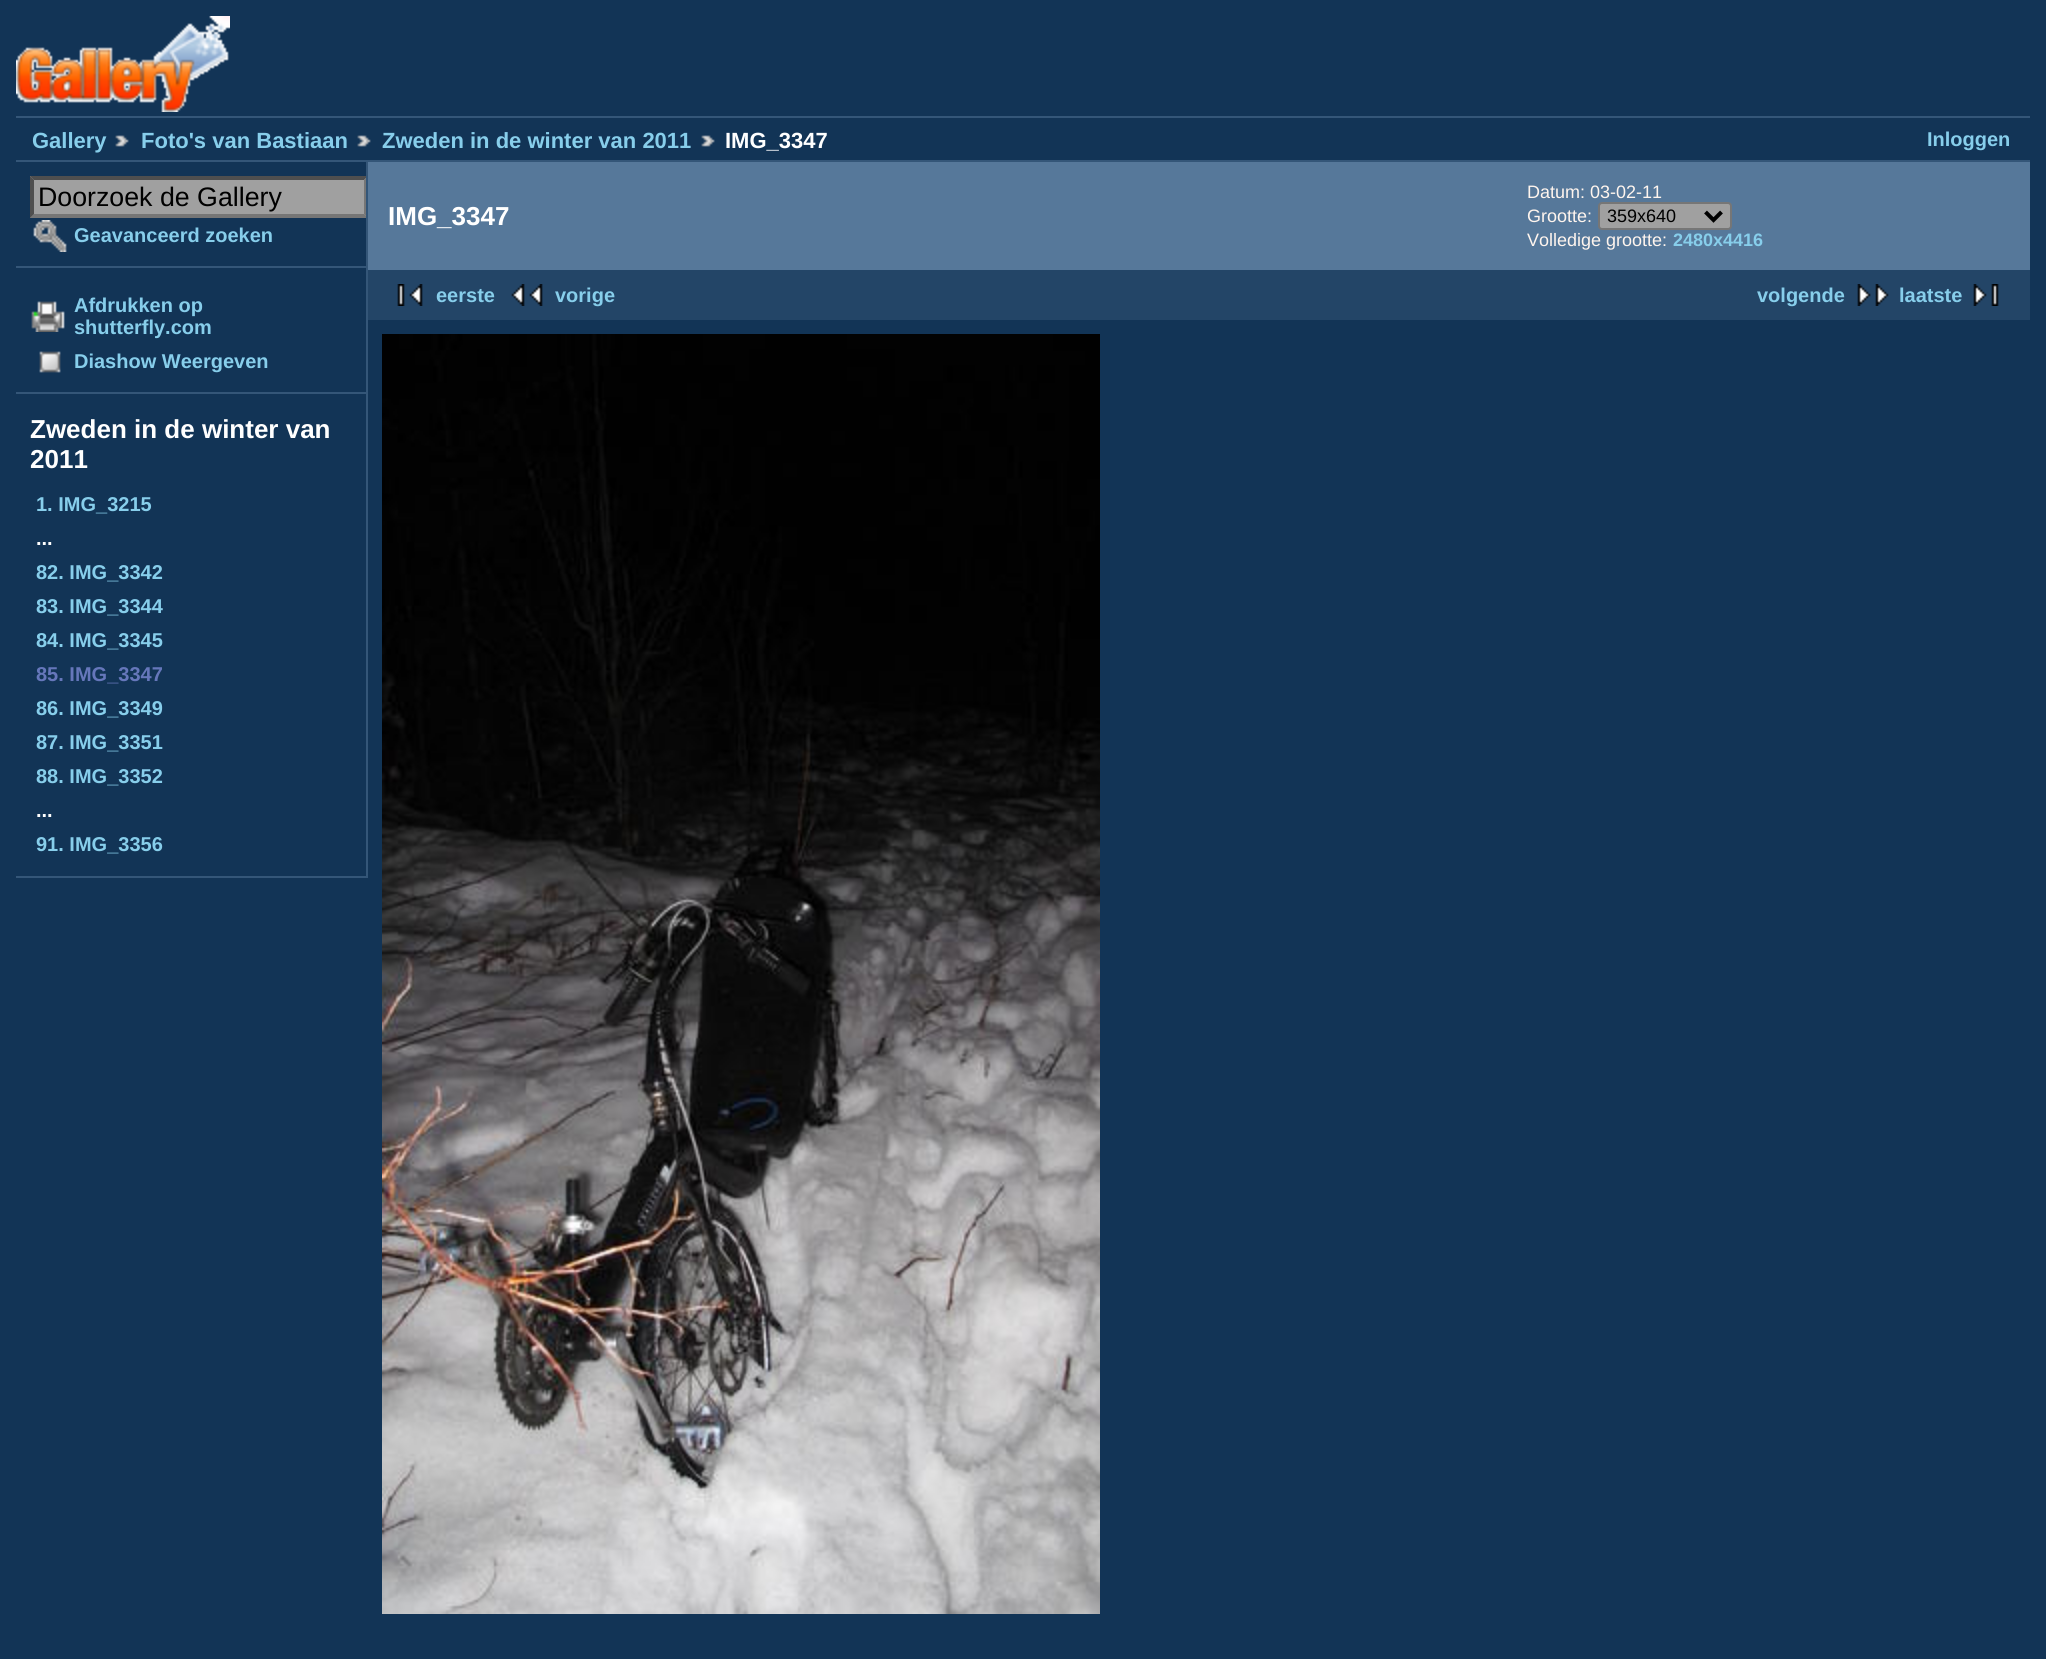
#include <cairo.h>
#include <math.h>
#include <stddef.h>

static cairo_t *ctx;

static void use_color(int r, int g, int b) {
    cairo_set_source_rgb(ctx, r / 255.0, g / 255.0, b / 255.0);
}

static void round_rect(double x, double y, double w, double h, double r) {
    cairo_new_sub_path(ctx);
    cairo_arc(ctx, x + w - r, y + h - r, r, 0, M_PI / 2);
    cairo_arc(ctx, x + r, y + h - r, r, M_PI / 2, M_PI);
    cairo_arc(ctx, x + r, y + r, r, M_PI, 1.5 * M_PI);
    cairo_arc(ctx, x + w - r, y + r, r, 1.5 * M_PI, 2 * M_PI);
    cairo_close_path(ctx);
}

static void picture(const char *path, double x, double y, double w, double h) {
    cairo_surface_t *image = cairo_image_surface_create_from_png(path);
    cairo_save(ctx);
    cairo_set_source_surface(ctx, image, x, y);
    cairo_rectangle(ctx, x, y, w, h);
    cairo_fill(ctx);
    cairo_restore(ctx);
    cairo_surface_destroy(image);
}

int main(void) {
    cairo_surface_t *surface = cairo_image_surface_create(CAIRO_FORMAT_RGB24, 2046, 1659);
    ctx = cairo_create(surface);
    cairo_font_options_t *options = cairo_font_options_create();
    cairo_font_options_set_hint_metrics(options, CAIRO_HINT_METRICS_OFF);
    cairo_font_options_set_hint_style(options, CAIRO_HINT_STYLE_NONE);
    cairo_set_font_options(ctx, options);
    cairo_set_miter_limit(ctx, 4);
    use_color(18, 52, 86);
    cairo_paint(ctx);
    picture("img1.png", 16, 16, 214, 96);
    use_color(52, 86, 120);
    cairo_rectangle(ctx, 16, 116, 2014, 2);
    cairo_fill(ctx);
    cairo_rectangle(ctx, 16, 160, 2014, 2);
    cairo_fill(ctx);
    cairo_select_font_face(ctx, "Liberation Sans", CAIRO_FONT_SLANT_NORMAL, CAIRO_FONT_WEIGHT_BOLD);
    cairo_set_font_size(ctx, 22);
    use_color(135, 206, 235);
    cairo_move_to(ctx, 32, 148);
    cairo_show_text(ctx, "Gallery");
    picture("img2.png", 115, 135, 14, 12);
    cairo_move_to(ctx, 141, 148);
    cairo_show_text(ctx, "Foto's van Bastiaan");
    picture("img2.png", 357, 135, 14, 12);
    cairo_move_to(ctx, 382, 148);
    cairo_show_text(ctx, "Zweden in de winter van 2011");
    picture("img2.png", 701, 135, 14, 12);
    use_color(255, 255, 255);
    cairo_move_to(ctx, 725, 148);
    cairo_show_text(ctx, "IMG_3347");
    cairo_set_font_size(ctx, 20);
    use_color(135, 206, 235);
    cairo_move_to(ctx, 1927, 146);
    cairo_show_text(ctx, "Inloggen");
    use_color(52, 86, 120);
    cairo_rectangle(ctx, 366, 162, 2, 716);
    cairo_fill(ctx);
    cairo_rectangle(ctx, 16, 266, 350, 2);
    cairo_fill(ctx);
    use_color(160, 160, 160);
    cairo_rectangle(ctx, 30, 176, 336, 42);
    cairo_fill(ctx);
    cairo_save(ctx);
    cairo_rectangle(ctx, 16, 162, 350, 716);
    cairo_clip(ctx);
    use_color(79, 79, 79);
    cairo_new_path(ctx);
    cairo_move_to(ctx, 30, 176);
    cairo_line_to(ctx, 368, 176);
    cairo_line_to(ctx, 364, 180);
    cairo_line_to(ctx, 34, 180);
    cairo_close_path(ctx);
    cairo_fill(ctx);
    use_color(118, 118, 118);
    cairo_new_path(ctx);
    cairo_move_to(ctx, 368, 176);
    cairo_line_to(ctx, 368, 218);
    cairo_line_to(ctx, 364, 214);
    cairo_line_to(ctx, 364, 180);
    cairo_close_path(ctx);
    cairo_fill(ctx);
    cairo_new_path(ctx);
    cairo_move_to(ctx, 368, 218);
    cairo_line_to(ctx, 30, 218);
    cairo_line_to(ctx, 34, 214);
    cairo_line_to(ctx, 364, 214);
    cairo_close_path(ctx);
    cairo_fill(ctx);
    cairo_restore(ctx);
    use_color(79, 79, 79);
    cairo_new_path(ctx);
    cairo_move_to(ctx, 30, 218);
    cairo_line_to(ctx, 30, 176);
    cairo_line_to(ctx, 34, 180);
    cairo_line_to(ctx, 34, 214);
    cairo_close_path(ctx);
    cairo_fill(ctx);
    cairo_select_font_face(ctx, "Liberation Sans", CAIRO_FONT_SLANT_NORMAL, CAIRO_FONT_WEIGHT_NORMAL);
    cairo_set_font_size(ctx, 26.75);
    use_color(0, 0, 0);
    cairo_move_to(ctx, 38, 206);
    cairo_show_text(ctx, "Doorzoek de Gallery");
    picture("img3.png", 33, 220, 34, 32);
    cairo_select_font_face(ctx, "Liberation Sans", CAIRO_FONT_SLANT_NORMAL, CAIRO_FONT_WEIGHT_BOLD);
    cairo_set_font_size(ctx, 20);
    use_color(135, 206, 235);
    cairo_move_to(ctx, 74, 242);
    cairo_show_text(ctx, "Geavanceerd zoeken");
    use_color(52, 86, 120);
    cairo_rectangle(ctx, 16, 392, 350, 2);
    cairo_fill(ctx);
    picture("img4.png", 31, 301, 34, 31);
    use_color(135, 206, 235);
    cairo_move_to(ctx, 74, 312);
    cairo_show_text(ctx, "Afdrukken op");
    cairo_move_to(ctx, 74, 334);
    cairo_show_text(ctx, "shutterfly.com");
    picture("img5.png", 39, 351, 22, 22);
    cairo_move_to(ctx, 74, 368);
    cairo_show_text(ctx, "Diashow Weergeven");
    use_color(52, 86, 120);
    cairo_rectangle(ctx, 16, 876, 350, 2);
    cairo_fill(ctx);
    cairo_set_font_size(ctx, 26);
    use_color(255, 255, 255);
    cairo_move_to(ctx, 30, 438);
    cairo_show_text(ctx, "Zweden in de winter van");
    cairo_move_to(ctx, 30, 468);
    cairo_show_text(ctx, "2011");
    cairo_set_font_size(ctx, 20);
    use_color(135, 206, 235);
    cairo_move_to(ctx, 36, 511);
    cairo_show_text(ctx, "1. IMG_3215");
    use_color(255, 255, 255);
    cairo_move_to(ctx, 36, 545);
    cairo_show_text(ctx, "...");
    use_color(135, 206, 235);
    cairo_move_to(ctx, 36, 579);
    cairo_show_text(ctx, "82. IMG_3342");
    cairo_move_to(ctx, 36, 613);
    cairo_show_text(ctx, "83. IMG_3344");
    cairo_move_to(ctx, 36, 647);
    cairo_show_text(ctx, "84. IMG_3345");
    use_color(102, 119, 187);
    cairo_move_to(ctx, 36, 681);
    cairo_show_text(ctx, "85. IMG_3347");
    use_color(135, 206, 235);
    cairo_move_to(ctx, 36, 715);
    cairo_show_text(ctx, "86. IMG_3349");
    cairo_move_to(ctx, 36, 749);
    cairo_show_text(ctx, "87. IMG_3351");
    cairo_move_to(ctx, 36, 783);
    cairo_show_text(ctx, "88. IMG_3352");
    use_color(255, 255, 255);
    cairo_move_to(ctx, 36, 817);
    cairo_show_text(ctx, "...");
    use_color(135, 206, 235);
    cairo_move_to(ctx, 36, 851);
    cairo_show_text(ctx, "91. IMG_3356");
    use_color(86, 120, 154);
    cairo_rectangle(ctx, 368, 162, 1662, 108);
    cairo_fill(ctx);
    cairo_set_font_size(ctx, 26);
    use_color(255, 255, 255);
    cairo_move_to(ctx, 388, 225);
    cairo_show_text(ctx, "IMG_3347");
    cairo_select_font_face(ctx, "Liberation Sans", CAIRO_FONT_SLANT_NORMAL, CAIRO_FONT_WEIGHT_NORMAL);
    cairo_set_font_size(ctx, 18);
    use_color(255, 245, 238);
    cairo_move_to(ctx, 1527, 198);
    cairo_show_text(ctx, "Datum: 03-02-11");
    cairo_move_to(ctx, 1527, 222);
    cairo_show_text(ctx, "Grootte:");
    use_color(160, 160, 160);
    round_rect(1599, 203, 132, 26, 3);
    cairo_fill_preserve(ctx);
    use_color(118, 118, 118);
    cairo_stroke(ctx);
    cairo_new_path(ctx);
    cairo_move_to(ctx, 1705.5, 212);
    cairo_line_to(ctx, 1713.5, 220);
    cairo_line_to(ctx, 1721.5, 212);
    use_color(0, 0, 0);
    cairo_set_line_width(ctx, 4);
    cairo_stroke(ctx);
    cairo_move_to(ctx, 1607, 222);
    cairo_show_text(ctx, "359x640");
    use_color(255, 245, 238);
    cairo_move_to(ctx, 1527, 246);
    cairo_show_text(ctx, "Volledige grootte:");
    cairo_select_font_face(ctx, "Liberation Sans", CAIRO_FONT_SLANT_NORMAL, CAIRO_FONT_WEIGHT_BOLD);
    use_color(135, 206, 235);
    cairo_move_to(ctx, 1673, 246);
    cairo_show_text(ctx, "2480x4416");
    use_color(35, 69, 103);
    cairo_rectangle(ctx, 368, 270, 1662, 50);
    cairo_fill(ctx);
    picture("img6.png", 397, 284, 26, 22);
    cairo_set_font_size(ctx, 20);
    use_color(135, 206, 235);
    cairo_move_to(ctx, 436, 302);
    cairo_show_text(ctx, "eerste");
    picture("img7.png", 511, 284, 32, 22);
    cairo_move_to(ctx, 555, 302);
    cairo_show_text(ctx, "vorige");
    cairo_move_to(ctx, 1757, 302);
    cairo_show_text(ctx, "volgende");
    picture("img8.png", 1857, 284, 32, 22);
    cairo_move_to(ctx, 1899, 302);
    cairo_show_text(ctx, "laatste");
    picture("img9.png", 1973, 284, 26, 22);
    picture("img10.png", 382, 334, 718, 1280);
    cairo_surface_write_to_png(surface, "result.png");
    cairo_font_options_destroy(options);
    cairo_destroy(ctx);
    cairo_surface_destroy(surface);
    return 0;
}
